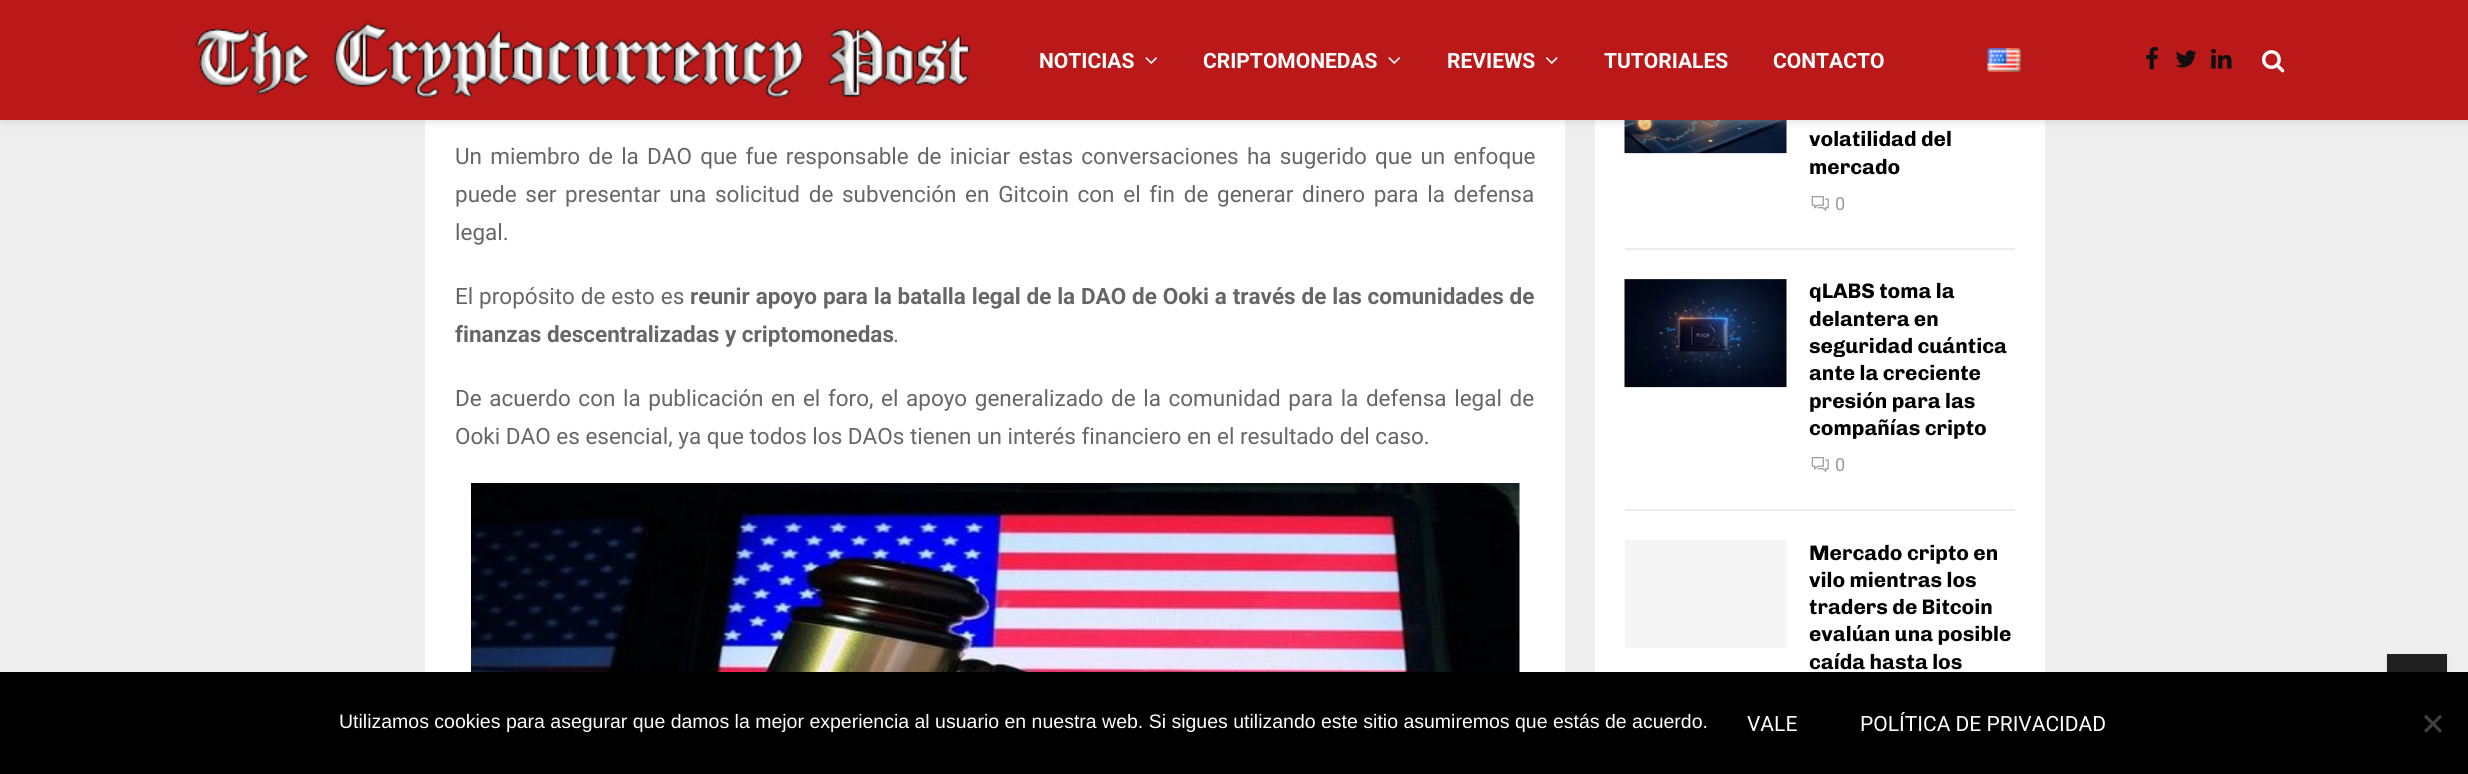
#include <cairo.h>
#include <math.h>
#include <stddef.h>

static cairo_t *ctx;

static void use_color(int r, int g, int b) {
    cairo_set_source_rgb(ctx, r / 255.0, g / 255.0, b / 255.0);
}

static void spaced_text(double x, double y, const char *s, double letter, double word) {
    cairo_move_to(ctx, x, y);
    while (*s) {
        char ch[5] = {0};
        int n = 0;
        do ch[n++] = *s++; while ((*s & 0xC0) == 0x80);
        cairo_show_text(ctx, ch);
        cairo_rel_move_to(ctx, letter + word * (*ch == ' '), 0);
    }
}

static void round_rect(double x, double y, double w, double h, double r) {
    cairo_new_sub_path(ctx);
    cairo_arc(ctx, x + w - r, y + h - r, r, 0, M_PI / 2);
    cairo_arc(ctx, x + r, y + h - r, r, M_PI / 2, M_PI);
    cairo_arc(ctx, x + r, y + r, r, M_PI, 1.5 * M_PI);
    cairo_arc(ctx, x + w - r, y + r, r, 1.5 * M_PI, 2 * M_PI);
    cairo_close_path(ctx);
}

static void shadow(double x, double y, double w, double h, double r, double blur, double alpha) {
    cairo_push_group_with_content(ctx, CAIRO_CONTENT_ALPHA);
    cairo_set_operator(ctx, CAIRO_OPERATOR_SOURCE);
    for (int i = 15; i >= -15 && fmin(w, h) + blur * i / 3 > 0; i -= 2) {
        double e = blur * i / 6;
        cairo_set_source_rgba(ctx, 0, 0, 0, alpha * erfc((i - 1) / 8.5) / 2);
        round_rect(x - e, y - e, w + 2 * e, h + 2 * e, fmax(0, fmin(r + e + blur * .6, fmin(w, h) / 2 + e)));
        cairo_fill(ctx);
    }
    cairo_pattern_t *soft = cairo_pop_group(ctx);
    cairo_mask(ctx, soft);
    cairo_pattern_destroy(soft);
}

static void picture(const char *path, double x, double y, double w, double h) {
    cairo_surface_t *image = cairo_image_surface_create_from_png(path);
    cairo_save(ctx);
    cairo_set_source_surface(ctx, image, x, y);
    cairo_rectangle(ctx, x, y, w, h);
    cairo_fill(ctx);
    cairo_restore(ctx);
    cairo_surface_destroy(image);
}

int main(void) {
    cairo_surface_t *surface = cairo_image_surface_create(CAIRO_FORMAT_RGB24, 2468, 774);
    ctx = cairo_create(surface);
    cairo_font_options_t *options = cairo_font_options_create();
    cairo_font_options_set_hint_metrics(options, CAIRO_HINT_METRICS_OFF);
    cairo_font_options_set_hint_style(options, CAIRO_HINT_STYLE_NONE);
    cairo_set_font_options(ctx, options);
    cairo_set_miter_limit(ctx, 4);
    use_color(238, 238, 238);
    cairo_paint(ctx);
    use_color(255, 255, 255);
    cairo_rectangle(ctx, 425, 120, 1140, 552);
    cairo_fill(ctx);
    cairo_rectangle(ctx, 1595, 120, 450, 552);
    cairo_fill(ctx);
    use_color(245, 245, 245);
    cairo_rectangle(ctx, 1786, 120, 1, 33);
    cairo_fill(ctx);
    picture("img10.png", 1624, 120, 163, 34);
    use_color(190, 190, 190);
    shadow(0, 2, 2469, 120, 0, 4, 0.46);
    use_color(187, 25, 25);
    cairo_rectangle(ctx, 0, 0, 2468, 120);
    cairo_fill(ctx);
    picture("img1.png", 195, 22, 775, 77);
    cairo_select_font_face(ctx, "Roboto", CAIRO_FONT_SLANT_NORMAL, CAIRO_FONT_WEIGHT_BOLD);
    cairo_set_font_size(ctx, 21);
    use_color(255, 255, 255);
    cairo_move_to(ctx, 1039, 68);
    cairo_show_text(ctx, "NOTICIAS");
    picture("img2.png", 1145, 57, 12, 7);
    cairo_move_to(ctx, 1203, 68);
    cairo_show_text(ctx, "CRIPTOMONEDAS");
    picture("img2.png", 1388, 57, 12, 7);
    cairo_move_to(ctx, 1447, 68);
    cairo_show_text(ctx, "REVIEWS");
    picture("img3.png", 1546, 57, 12, 7);
    cairo_move_to(ctx, 1604, 68);
    cairo_show_text(ctx, "TUTORIALES");
    cairo_move_to(ctx, 1773, 68);
    cairo_show_text(ctx, "CONTACTO");
    picture("img4.png", 1987, 48, 34, 24);
    picture("img5.png", 2146, 46, 12, 24);
    picture("img6.png", 2175, 50, 22, 18);
    picture("img7.png", 2211, 48, 21, 21);
    picture("img8.png", 2262, 50, 23, 23);
    cairo_select_font_face(ctx, "Roboto", CAIRO_FONT_SLANT_NORMAL, CAIRO_FONT_WEIGHT_NORMAL);
    cairo_set_font_size(ctx, 22.5);
    use_color(102, 102, 102);
    spaced_text(455, 164, "Un miembro de la DAO que fue responsable de iniciar estas conversaciones ha sugerido que un enfoque", 0, 2.6);
    spaced_text(455, 202, "puede ser presentar una solicitud de subvención en Gitcoin con el fin de generar dinero para la defensa", 0, 3.1);
    cairo_move_to(ctx, 455, 240);
    cairo_show_text(ctx, "legal.");
    spaced_text(455, 304, "El propósito de esto es", 0, 0.25);
    cairo_select_font_face(ctx, "Roboto", CAIRO_FONT_SLANT_NORMAL, CAIRO_FONT_WEIGHT_BOLD);
    spaced_text(690, 304, "reunir apoyo para la batalla legal de la DAO de Ooki a través de las comunidades de", 0, 0.25);
    cairo_move_to(ctx, 455, 342);
    cairo_show_text(ctx, "finanzas descentralizadas y criptomonedas");
    cairo_select_font_face(ctx, "Roboto", CAIRO_FONT_SLANT_NORMAL, CAIRO_FONT_WEIGHT_NORMAL);
    cairo_move_to(ctx, 893, 342);
    cairo_show_text(ctx, ".");
    spaced_text(455, 406, "De acuerdo con la publicación en el foro, el apoyo generalizado de la comunidad para la defensa legal de", 0, 2);
    cairo_move_to(ctx, 455, 444);
    cairo_show_text(ctx, "Ooki DAO es esencial, ya que todos los DAOs tienen un interés financiero en el resultado del caso.");
    picture("img9.png", 471, 483, 1049, 189);
    use_color(236, 236, 236);
    cairo_rectangle(ctx, 1625, 248, 390, 2);
    cairo_fill(ctx);
    cairo_select_font_face(ctx, "Chivo", CAIRO_FONT_SLANT_NORMAL, CAIRO_FONT_WEIGHT_BOLD);
    cairo_set_font_size(ctx, 21);
    use_color(0, 0, 0);
    cairo_move_to(ctx, 1809, 146);
    cairo_show_text(ctx, "volatilidad del");
    cairo_move_to(ctx, 1809, 174);
    cairo_show_text(ctx, "mercado");
    picture("img11.png", 1811, 196, 18, 16);
    cairo_select_font_face(ctx, "Roboto", CAIRO_FONT_SLANT_NORMAL, CAIRO_FONT_WEIGHT_NORMAL);
    cairo_set_font_size(ctx, 18);
    use_color(153, 153, 153);
    cairo_move_to(ctx, 1835, 210);
    cairo_show_text(ctx, "0");
    use_color(236, 236, 236);
    cairo_rectangle(ctx, 1625, 509, 390, 2);
    cairo_fill(ctx);
    use_color(245, 245, 245);
    cairo_rectangle(ctx, 1625, 279, 162, 108);
    cairo_fill(ctx);
    picture("img12.png", 1624, 279, 163, 109);
    cairo_select_font_face(ctx, "Chivo", CAIRO_FONT_SLANT_NORMAL, CAIRO_FONT_WEIGHT_BOLD);
    cairo_set_font_size(ctx, 21);
    use_color(0, 0, 0);
    cairo_move_to(ctx, 1809, 298);
    cairo_show_text(ctx, "qLABS toma la");
    cairo_move_to(ctx, 1809, 326);
    cairo_show_text(ctx, "delantera en");
    cairo_move_to(ctx, 1809, 353);
    cairo_show_text(ctx, "seguridad cuántica");
    cairo_move_to(ctx, 1809, 380);
    cairo_show_text(ctx, "ante la creciente");
    cairo_move_to(ctx, 1809, 408);
    cairo_show_text(ctx, "presión para las");
    cairo_move_to(ctx, 1809, 435);
    cairo_show_text(ctx, "compañías cripto");
    picture("img11.png", 1811, 457, 18, 16);
    cairo_select_font_face(ctx, "Roboto", CAIRO_FONT_SLANT_NORMAL, CAIRO_FONT_WEIGHT_NORMAL);
    cairo_set_font_size(ctx, 18);
    use_color(153, 153, 153);
    cairo_move_to(ctx, 1835, 471);
    cairo_show_text(ctx, "0");
    use_color(245, 245, 245);
    cairo_rectangle(ctx, 1625, 540, 162, 108);
    cairo_fill(ctx);
    cairo_select_font_face(ctx, "Chivo", CAIRO_FONT_SLANT_NORMAL, CAIRO_FONT_WEIGHT_BOLD);
    cairo_set_font_size(ctx, 21);
    use_color(0, 0, 0);
    cairo_move_to(ctx, 1809, 560);
    cairo_show_text(ctx, "Mercado cripto en");
    cairo_move_to(ctx, 1809, 587);
    cairo_show_text(ctx, "vilo mientras los");
    cairo_move_to(ctx, 1809, 614);
    cairo_show_text(ctx, "traders de Bitcoin");
    cairo_move_to(ctx, 1809, 641);
    cairo_show_text(ctx, "evalúan una posible");
    cairo_move_to(ctx, 1809, 669);
    cairo_show_text(ctx, "caída hasta los");
    use_color(0, 0, 0);
    shadow(2387, 656, 60, 60, 0, 1.5, 0.1);
    use_color(0, 0, 0);
    cairo_rectangle(ctx, 0, 672, 2468, 102);
    cairo_fill(ctx);
    cairo_select_font_face(ctx, "Liberation Sans", CAIRO_FONT_SLANT_NORMAL, CAIRO_FONT_WEIGHT_NORMAL);
    cairo_set_font_size(ctx, 19.5);
    use_color(255, 255, 255);
    cairo_move_to(ctx, 339, 728);
    cairo_show_text(ctx, "Utilizamos cookies para asegurar que damos la mejor experiencia al usuario en nuestra web. Si sigues utilizando este sitio asumiremos que estás de acuerdo.");
    cairo_select_font_face(ctx, "Roboto", CAIRO_FONT_SLANT_NORMAL, CAIRO_FONT_WEIGHT_NORMAL);
    cairo_set_font_size(ctx, 21);
    cairo_move_to(ctx, 1747, 731);
    cairo_show_text(ctx, "VALE");
    cairo_move_to(ctx, 1860, 731);
    cairo_show_text(ctx, "POLÍTICA DE PRIVACIDAD");
    use_color(64, 64, 64);
    cairo_new_path(ctx);
    cairo_move_to(ctx, 2440, 714.5);
    cairo_line_to(ctx, 2442, 717);
    cairo_line_to(ctx, 2426, 733);
    cairo_line_to(ctx, 2424, 730.5);
    cairo_close_path(ctx);
    cairo_fill(ctx);
    cairo_new_path(ctx);
    cairo_move_to(ctx, 2424, 717);
    cairo_line_to(ctx, 2426, 714.5);
    cairo_line_to(ctx, 2442, 730.5);
    cairo_line_to(ctx, 2440, 733);
    cairo_close_path(ctx);
    cairo_fill(ctx);
    use_color(33, 33, 33);
    cairo_rectangle(ctx, 2387, 654, 60, 18);
    cairo_fill(ctx);
    cairo_surface_write_to_png(surface, "result.png");
    cairo_font_options_destroy(options);
    cairo_destroy(ctx);
    cairo_surface_destroy(surface);
    return 0;
}
